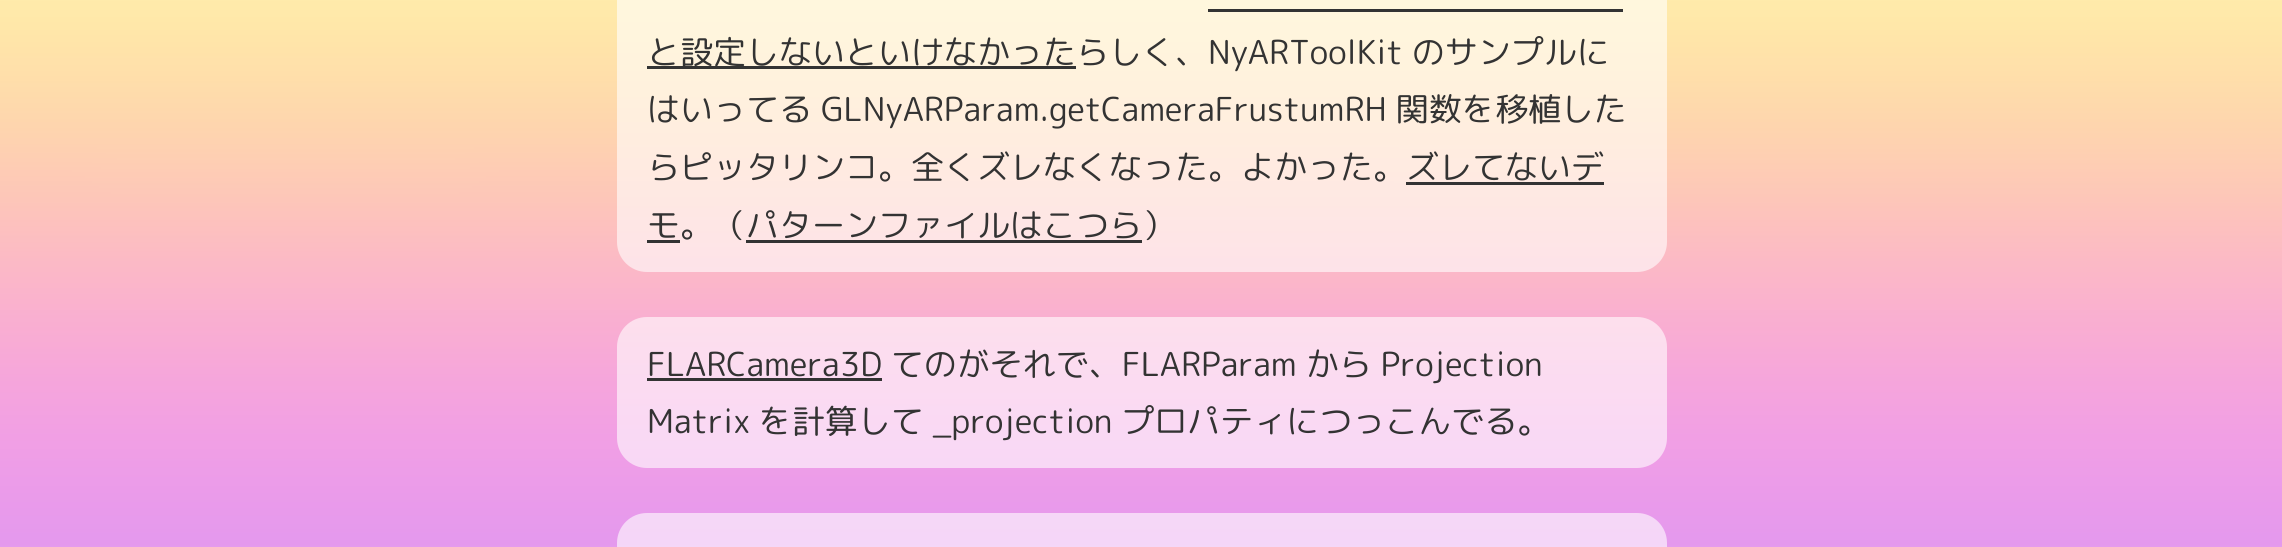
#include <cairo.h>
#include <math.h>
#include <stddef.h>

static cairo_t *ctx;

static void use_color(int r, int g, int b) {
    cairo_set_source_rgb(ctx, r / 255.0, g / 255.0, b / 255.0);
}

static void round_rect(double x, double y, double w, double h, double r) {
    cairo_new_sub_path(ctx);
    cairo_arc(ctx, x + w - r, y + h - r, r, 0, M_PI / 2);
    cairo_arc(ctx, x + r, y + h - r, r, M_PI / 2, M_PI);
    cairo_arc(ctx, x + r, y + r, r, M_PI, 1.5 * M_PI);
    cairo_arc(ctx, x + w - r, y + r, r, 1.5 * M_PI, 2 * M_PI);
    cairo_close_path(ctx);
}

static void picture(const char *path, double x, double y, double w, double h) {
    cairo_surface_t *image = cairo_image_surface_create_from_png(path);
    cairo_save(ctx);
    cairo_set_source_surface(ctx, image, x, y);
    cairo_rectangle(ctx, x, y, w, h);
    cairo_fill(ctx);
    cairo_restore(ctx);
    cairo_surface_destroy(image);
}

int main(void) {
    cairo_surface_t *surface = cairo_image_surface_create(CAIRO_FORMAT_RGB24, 2282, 547);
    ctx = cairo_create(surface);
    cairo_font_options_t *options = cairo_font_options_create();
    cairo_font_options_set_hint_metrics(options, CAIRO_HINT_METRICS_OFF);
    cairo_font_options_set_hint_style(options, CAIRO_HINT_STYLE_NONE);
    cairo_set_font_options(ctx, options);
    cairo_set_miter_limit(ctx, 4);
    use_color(255, 255, 255);
    cairo_paint(ctx);
    picture("img1.png", 0, 0, 2282, 547);
    cairo_set_source_rgba(ctx, 1, 1, 1, 0.6);
    round_rect(617, -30, 1050, 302, 30);
    cairo_fill(ctx);
    use_color(51, 51, 51);
    cairo_rectangle(ctx, 647, 66, 429, 3);
    cairo_fill(ctx);
    cairo_select_font_face(ctx, "Rounded Mplus 1c", CAIRO_FONT_SLANT_NORMAL, CAIRO_FONT_WEIGHT_NORMAL);
    cairo_set_font_size(ctx, 33);
    cairo_move_to(ctx, 647, 64);
    cairo_show_text(ctx, "と設定しないといけなかったらしく、NyARToolKit のサンプルに");
    cairo_rectangle(ctx, 1208, 9, 415, 3);
    cairo_fill(ctx);
    cairo_move_to(ctx, 647, 121);
    cairo_show_text(ctx, "はいってる GLNyARParam.getCameraFrustumRH 関数を移植した");
    cairo_move_to(ctx, 647, 179);
    cairo_show_text(ctx, "らピッタリンコ。全くズレなくなった。よかった。ズレてないデ");
    cairo_rectangle(ctx, 647, 240, 33, 3);
    cairo_fill(ctx);
    cairo_move_to(ctx, 647, 237);
    cairo_show_text(ctx, "モ。（パターンファイルはこつら）");
    cairo_rectangle(ctx, 1406, 182, 198, 3);
    cairo_fill(ctx);
    cairo_rectangle(ctx, 746, 240, 396, 3);
    cairo_fill(ctx);
    cairo_set_source_rgba(ctx, 1, 1, 1, 0.6);
    round_rect(617, 317, 1050, 151, 30);
    cairo_fill(ctx);
    use_color(51, 51, 51);
    cairo_rectangle(ctx, 647, 378, 235, 3);
    cairo_fill(ctx);
    cairo_move_to(ctx, 647, 376);
    cairo_show_text(ctx, "FLARCamera3D てのがそれで、FLARParam から Projection");
    cairo_move_to(ctx, 647, 433);
    cairo_show_text(ctx, "Matrix を計算して _projection プロパティにつっこんでる。");
    cairo_set_source_rgba(ctx, 1, 1, 1, 0.6);
    round_rect(617, 513, 1050, 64, 30);
    cairo_fill(ctx);
    cairo_surface_write_to_png(surface, "result.png");
    cairo_font_options_destroy(options);
    cairo_destroy(ctx);
    cairo_surface_destroy(surface);
    return 0;
}
